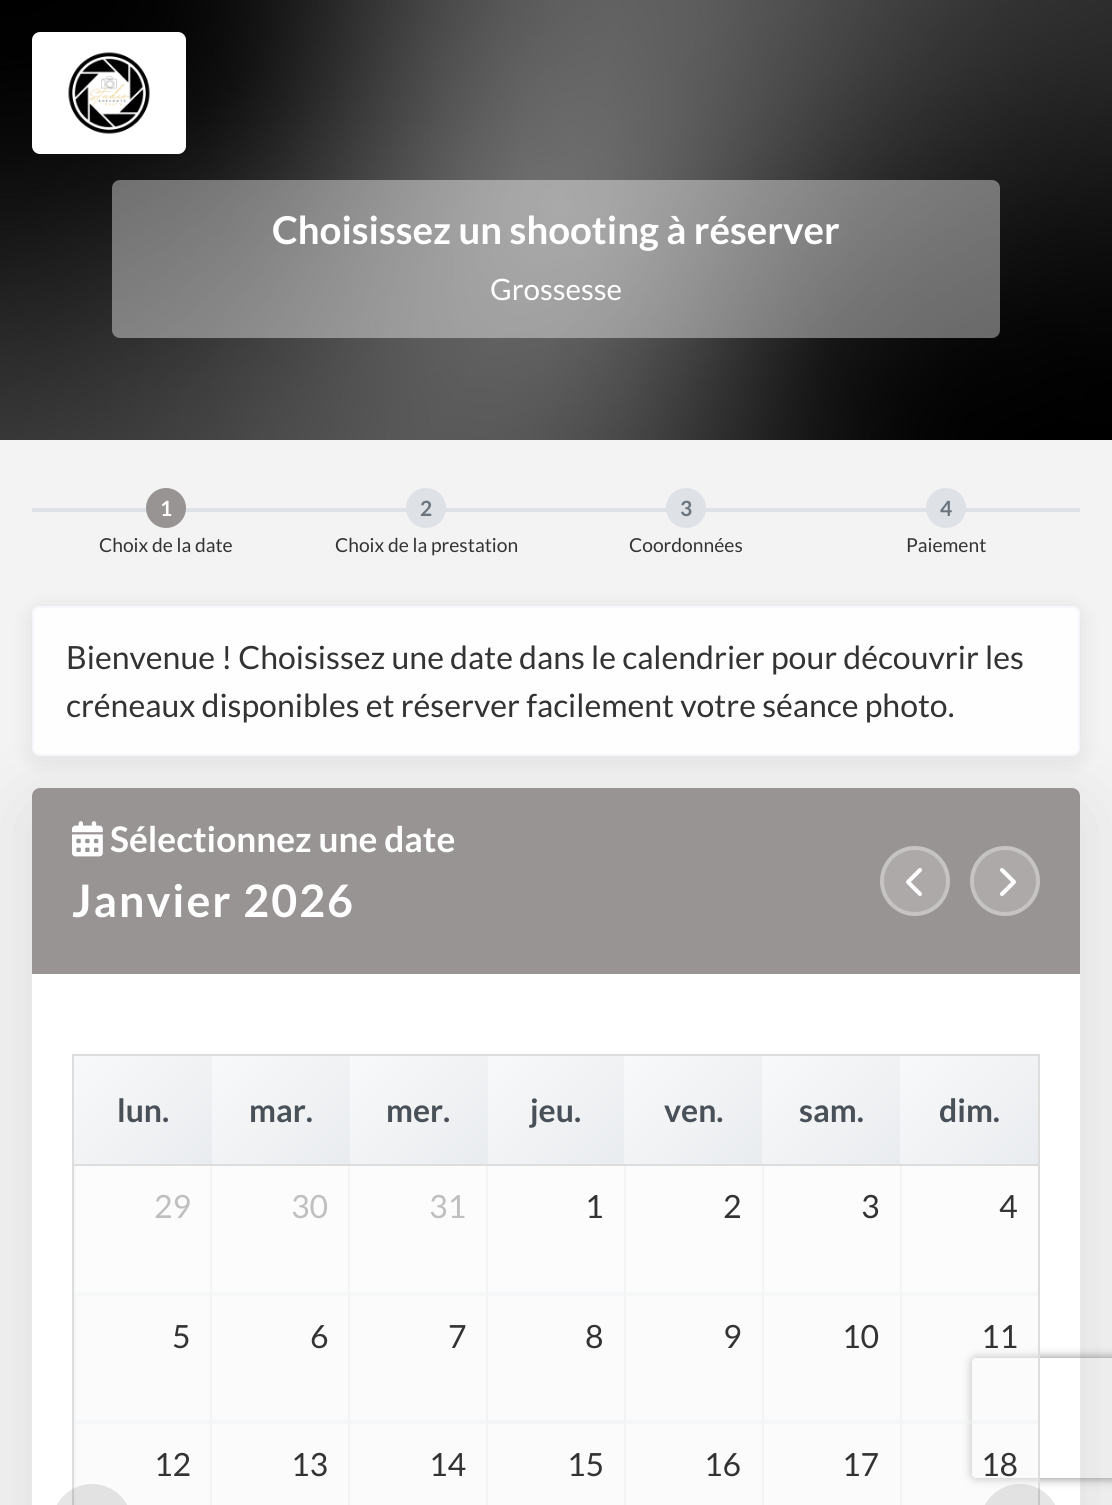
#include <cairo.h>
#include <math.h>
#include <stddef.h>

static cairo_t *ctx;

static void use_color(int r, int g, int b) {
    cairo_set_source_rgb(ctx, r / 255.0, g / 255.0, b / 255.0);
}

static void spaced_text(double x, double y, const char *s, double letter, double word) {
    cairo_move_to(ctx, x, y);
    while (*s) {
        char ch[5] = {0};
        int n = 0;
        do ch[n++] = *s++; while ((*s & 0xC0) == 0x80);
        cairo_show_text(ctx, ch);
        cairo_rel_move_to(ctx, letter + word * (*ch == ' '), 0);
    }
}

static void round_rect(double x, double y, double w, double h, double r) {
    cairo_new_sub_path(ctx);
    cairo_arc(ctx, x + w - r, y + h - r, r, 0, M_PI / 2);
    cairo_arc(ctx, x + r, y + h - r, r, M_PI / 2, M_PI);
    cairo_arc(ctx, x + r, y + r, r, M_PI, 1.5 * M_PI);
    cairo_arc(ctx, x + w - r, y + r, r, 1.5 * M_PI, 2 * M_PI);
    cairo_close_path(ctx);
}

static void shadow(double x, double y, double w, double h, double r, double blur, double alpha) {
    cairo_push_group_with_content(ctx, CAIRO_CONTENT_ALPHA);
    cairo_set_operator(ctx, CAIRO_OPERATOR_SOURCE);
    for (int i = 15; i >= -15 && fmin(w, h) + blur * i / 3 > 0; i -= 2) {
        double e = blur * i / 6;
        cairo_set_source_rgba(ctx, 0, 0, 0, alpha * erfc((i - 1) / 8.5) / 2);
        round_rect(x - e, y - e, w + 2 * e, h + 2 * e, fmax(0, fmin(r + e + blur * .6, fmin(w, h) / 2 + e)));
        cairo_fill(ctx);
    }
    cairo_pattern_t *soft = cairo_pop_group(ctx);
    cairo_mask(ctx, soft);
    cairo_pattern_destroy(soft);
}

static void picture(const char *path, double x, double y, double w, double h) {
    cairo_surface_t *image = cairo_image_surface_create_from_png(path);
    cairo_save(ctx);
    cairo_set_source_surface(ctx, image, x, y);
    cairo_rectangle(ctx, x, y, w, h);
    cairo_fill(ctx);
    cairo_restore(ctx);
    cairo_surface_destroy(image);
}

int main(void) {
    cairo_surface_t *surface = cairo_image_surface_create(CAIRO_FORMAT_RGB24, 1112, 1505);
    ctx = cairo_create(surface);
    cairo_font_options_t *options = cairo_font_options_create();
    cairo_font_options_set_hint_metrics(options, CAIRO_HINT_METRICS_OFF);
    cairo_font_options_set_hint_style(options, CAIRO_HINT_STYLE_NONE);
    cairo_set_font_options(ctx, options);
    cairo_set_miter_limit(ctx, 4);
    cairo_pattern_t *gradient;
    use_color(243, 243, 243);
    cairo_paint(ctx);
    picture("img1.png", 0, 0, 1112, 440);
    use_color(255, 255, 255);
    round_rect(32, 32, 154, 122, 8);
    cairo_fill(ctx);
    picture("img2.png", 68, 52, 82, 82);
    cairo_set_source_rgba(ctx, 1, 1, 1, 0.4);
    round_rect(112, 180, 888, 158, 8);
    cairo_fill(ctx);
    cairo_select_font_face(ctx, "Lato", CAIRO_FONT_SLANT_NORMAL, CAIRO_FONT_WEIGHT_BOLD);
    cairo_set_font_size(ctx, 38.4);
    use_color(255, 255, 255);
    cairo_move_to(ctx, 272, 244);
    cairo_show_text(ctx, "Choisissez un shooting à réserver");
    cairo_select_font_face(ctx, "Lato", CAIRO_FONT_SLANT_NORMAL, CAIRO_FONT_WEIGHT_NORMAL);
    cairo_set_font_size(ctx, 29.5);
    cairo_move_to(ctx, 490, 300);
    cairo_show_text(ctx, "Grossesse");
    use_color(222, 226, 230);
    cairo_rectangle(ctx, 32, 508, 1048, 4);
    cairo_fill(ctx);
    use_color(153, 148, 148);
    cairo_arc(ctx, 166, 508, 20, 0, 2 * M_PI);
    cairo_fill(ctx);
    cairo_select_font_face(ctx, "Lato", CAIRO_FONT_SLANT_NORMAL, CAIRO_FONT_WEIGHT_BOLD);
    cairo_set_font_size(ctx, 21);
    use_color(255, 255, 255);
    cairo_move_to(ctx, 160, 516);
    cairo_show_text(ctx, "1");
    cairo_select_font_face(ctx, "Lato", CAIRO_FONT_SLANT_NORMAL, CAIRO_FONT_WEIGHT_NORMAL);
    cairo_set_font_size(ctx, 19.25);
    use_color(51, 51, 51);
    cairo_move_to(ctx, 99, 552);
    cairo_show_text(ctx, "Choix de la date");
    use_color(222, 226, 230);
    cairo_new_path(ctx);
    cairo_arc(ctx, 426, 508, 20, 0, 2 * M_PI);
    cairo_fill(ctx);
    cairo_select_font_face(ctx, "Lato", CAIRO_FONT_SLANT_NORMAL, CAIRO_FONT_WEIGHT_BOLD);
    cairo_set_font_size(ctx, 21);
    use_color(108, 117, 125);
    cairo_move_to(ctx, 420, 516);
    cairo_show_text(ctx, "2");
    cairo_select_font_face(ctx, "Lato", CAIRO_FONT_SLANT_NORMAL, CAIRO_FONT_WEIGHT_NORMAL);
    cairo_set_font_size(ctx, 19.25);
    use_color(51, 51, 51);
    cairo_move_to(ctx, 335, 552);
    cairo_show_text(ctx, "Choix de la prestation");
    use_color(222, 226, 230);
    cairo_new_path(ctx);
    cairo_arc(ctx, 686, 508, 20, 0, 2 * M_PI);
    cairo_fill(ctx);
    cairo_select_font_face(ctx, "Lato", CAIRO_FONT_SLANT_NORMAL, CAIRO_FONT_WEIGHT_BOLD);
    cairo_set_font_size(ctx, 21);
    use_color(108, 117, 125);
    cairo_move_to(ctx, 680, 516);
    cairo_show_text(ctx, "3");
    cairo_select_font_face(ctx, "Lato", CAIRO_FONT_SLANT_NORMAL, CAIRO_FONT_WEIGHT_NORMAL);
    cairo_set_font_size(ctx, 19.25);
    use_color(51, 51, 51);
    cairo_move_to(ctx, 629, 552);
    cairo_show_text(ctx, "Coordonnées");
    use_color(222, 226, 230);
    cairo_new_path(ctx);
    cairo_arc(ctx, 946, 508, 20, 0, 2 * M_PI);
    cairo_fill(ctx);
    cairo_select_font_face(ctx, "Lato", CAIRO_FONT_SLANT_NORMAL, CAIRO_FONT_WEIGHT_BOLD);
    cairo_set_font_size(ctx, 21);
    use_color(108, 117, 125);
    cairo_move_to(ctx, 940, 516);
    cairo_show_text(ctx, "4");
    cairo_select_font_face(ctx, "Lato", CAIRO_FONT_SLANT_NORMAL, CAIRO_FONT_WEIGHT_NORMAL);
    cairo_set_font_size(ctx, 19.25);
    use_color(51, 51, 51);
    cairo_move_to(ctx, 906, 552);
    cairo_show_text(ctx, "Paiement");
    use_color(0, 0, 0);
    shadow(32, 808, 1048, 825, 8, 40, 0.1);
    use_color(255, 255, 255);
    round_rect(32, 788, 1048, 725, 8);
    cairo_fill(ctx);
    use_color(153, 148, 148);
    cairo_new_path(ctx);
    cairo_move_to(ctx, 40, 788);
    cairo_line_to(ctx, 1072, 788);
    cairo_curve_to(ctx, 1076.5, 788, 1080, 791.5, 1080, 796);
    cairo_line_to(ctx, 1080, 974);
    cairo_line_to(ctx, 32, 974);
    cairo_line_to(ctx, 32, 796);
    cairo_curve_to(ctx, 32, 791.5, 35.5, 788, 40, 788);
    cairo_close_path(ctx);
    cairo_fill(ctx);
    cairo_save(ctx);
    cairo_set_fill_rule(ctx, CAIRO_FILL_RULE_EVEN_ODD);
    cairo_new_path(ctx);
    cairo_move_to(ctx, 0, 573);
    cairo_line_to(ctx, 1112, 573);
    cairo_line_to(ctx, 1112, 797);
    cairo_line_to(ctx, 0, 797);
    cairo_close_path(ctx);
    cairo_move_to(ctx, 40, 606);
    cairo_line_to(ctx, 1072, 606);
    cairo_curve_to(ctx, 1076.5, 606, 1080, 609.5, 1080, 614);
    cairo_line_to(ctx, 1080, 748);
    cairo_curve_to(ctx, 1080, 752.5, 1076.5, 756, 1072, 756);
    cairo_line_to(ctx, 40, 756);
    cairo_curve_to(ctx, 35.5, 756, 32, 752.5, 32, 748);
    cairo_line_to(ctx, 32, 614);
    cairo_curve_to(ctx, 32, 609.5, 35.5, 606, 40, 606);
    cairo_close_path(ctx);
    cairo_clip(ctx);
    use_color(0, 0, 0);
    shadow(32, 610, 1048, 150, 8, 12, 0.08);
    cairo_restore(ctx);
    cairo_set_source_rgba(ctx, 1, 1, 1, 0.95);
    round_rect(32, 606, 1048, 150, 8);
    cairo_fill(ctx);
    round_rect(33, 607, 1046, 148, 7);
    cairo_set_source_rgba(ctx, 0.886, 0.91, 0.941, 0.3);
    cairo_stroke(ctx);
    cairo_set_font_size(ctx, 32);
    use_color(51, 51, 51);
    cairo_move_to(ctx, 66, 669);
    cairo_show_text(ctx, "Bienvenue ! Choisissez une date dans le calendrier pour découvrir les");
    cairo_move_to(ctx, 66, 717);
    cairo_show_text(ctx, "créneaux disponibles et réserver facilement votre séance photo.");
    use_color(244, 246, 247);
    cairo_rectangle(ctx, 74, 1294, 964, 2);
    cairo_fill(ctx);
    use_color(252, 252, 252);
    cairo_rectangle(ctx, 902, 1166, 136, 126);
    cairo_fill(ctx);
    cairo_rectangle(ctx, 764, 1166, 136, 126);
    cairo_fill(ctx);
    cairo_rectangle(ctx, 626, 1166, 136, 126);
    cairo_fill(ctx);
    cairo_rectangle(ctx, 488, 1166, 136, 126);
    cairo_fill(ctx);
    cairo_rectangle(ctx, 350, 1166, 136, 126);
    cairo_fill(ctx);
    cairo_rectangle(ctx, 212, 1166, 136, 126);
    cairo_fill(ctx);
    cairo_rectangle(ctx, 76, 1166, 134, 126);
    cairo_fill(ctx);
    use_color(246, 247, 248);
    cairo_rectangle(ctx, 74, 1292, 964, 2);
    cairo_fill(ctx);
    picture("img3.png", 72, 821, 31, 36);
    cairo_select_font_face(ctx, "Lato", CAIRO_FONT_SLANT_NORMAL, CAIRO_FONT_WEIGHT_BOLD);
    cairo_set_font_size(ctx, 35.25);
    use_color(255, 255, 255);
    cairo_move_to(ctx, 110, 852);
    cairo_show_text(ctx, "Sélectionnez une date");
    cairo_set_font_size(ctx, 44.75);
    spaced_text(72, 917, "Janvier 2026", 2, 0);
    use_color(173, 169, 169);
    cairo_new_path(ctx);
    cairo_arc(ctx, 915, 881, 35, 0, 2 * M_PI);
    cairo_fill(ctx);
    cairo_arc(ctx, 915, 881, 33, 0, 2 * M_PI);
    cairo_set_source_rgba(ctx, 1, 1, 1, 0.3);
    cairo_set_line_width(ctx, 4);
    cairo_stroke(ctx);
    picture("img4.png", 906, 868, 16, 28);
    use_color(173, 169, 169);
    cairo_arc(ctx, 1005, 881, 35, 0, 2 * M_PI);
    cairo_fill(ctx);
    cairo_arc(ctx, 1005, 881, 33, 0, 2 * M_PI);
    cairo_set_source_rgba(ctx, 1, 1, 1, 0.3);
    cairo_stroke(ctx);
    picture("img5.png", 1000, 868, 16, 28);
    use_color(221, 221, 221);
    cairo_rectangle(ctx, 72, 1054, 968, 2);
    cairo_fill(ctx);
    cairo_rectangle(ctx, 72, 1164, 968, 2);
    cairo_fill(ctx);
    cairo_save(ctx);
    cairo_set_fill_rule(ctx, CAIRO_FILL_RULE_EVEN_ODD);
    cairo_new_path(ctx);
    cairo_move_to(ctx, 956, 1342);
    cairo_line_to(ctx, 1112, 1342);
    cairo_line_to(ctx, 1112, 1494);
    cairo_line_to(ctx, 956, 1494);
    cairo_close_path(ctx);
    cairo_move_to(ctx, 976, 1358);
    cairo_line_to(ctx, 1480, 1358);
    cairo_curve_to(ctx, 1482, 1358, 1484, 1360, 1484, 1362);
    cairo_line_to(ctx, 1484, 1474);
    cairo_curve_to(ctx, 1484, 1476, 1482, 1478, 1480, 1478);
    cairo_line_to(ctx, 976, 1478);
    cairo_curve_to(ctx, 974, 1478, 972, 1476, 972, 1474);
    cairo_line_to(ctx, 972, 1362);
    cairo_curve_to(ctx, 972, 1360, 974, 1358, 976, 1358);
    cairo_close_path(ctx);
    cairo_clip(ctx);
    use_color(128, 128, 128);
    shadow(972, 1358, 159, 120, 4, 5, 1);
    cairo_restore(ctx);
    cairo_rectangle(ctx, 1038, 1164, 2, 341);
    cairo_fill(ctx);
    cairo_rectangle(ctx, 1038, 1054, 2, 112);
    cairo_fill(ctx);
    cairo_rectangle(ctx, 72, 1164, 2, 341);
    cairo_fill(ctx);
    cairo_rectangle(ctx, 72, 1054, 2, 112);
    cairo_fill(ctx);
    gradient = cairo_pattern_create_linear(82, 1049, 205, 1172);
    cairo_pattern_add_color_stop_rgba(gradient, 0, 0.973, 0.976, 0.98, 1);
    cairo_pattern_add_color_stop_rgba(gradient, 1, 0.914, 0.925, 0.937, 1);
    cairo_set_source(ctx, gradient);
    cairo_pattern_destroy(gradient);
    cairo_rectangle(ctx, 74, 1056, 138, 108);
    cairo_fill(ctx);
    cairo_set_font_size(ctx, 32);
    use_color(73, 80, 87);
    cairo_move_to(ctx, 117, 1122);
    cairo_show_text(ctx, "lun.");
    gradient = cairo_pattern_create_linear(220, 1049, 343, 1172);
    cairo_pattern_add_color_stop_rgba(gradient, 0, 0.973, 0.976, 0.98, 1);
    cairo_pattern_add_color_stop_rgba(gradient, 1, 0.914, 0.925, 0.937, 1);
    cairo_set_source(ctx, gradient);
    cairo_pattern_destroy(gradient);
    cairo_rectangle(ctx, 212, 1056, 138, 108);
    cairo_fill(ctx);
    use_color(73, 80, 87);
    cairo_move_to(ctx, 249, 1122);
    cairo_show_text(ctx, "mar.");
    gradient = cairo_pattern_create_linear(358, 1049, 481, 1172);
    cairo_pattern_add_color_stop_rgba(gradient, 0, 0.973, 0.976, 0.98, 1);
    cairo_pattern_add_color_stop_rgba(gradient, 1, 0.914, 0.925, 0.937, 1);
    cairo_set_source(ctx, gradient);
    cairo_pattern_destroy(gradient);
    cairo_rectangle(ctx, 350, 1056, 138, 108);
    cairo_fill(ctx);
    use_color(73, 80, 87);
    cairo_move_to(ctx, 386, 1122);
    cairo_show_text(ctx, "mer.");
    gradient = cairo_pattern_create_linear(495, 1049, 617, 1171);
    cairo_pattern_add_color_stop_rgba(gradient, 0, 0.973, 0.976, 0.98, 1);
    cairo_pattern_add_color_stop_rgba(gradient, 1, 0.914, 0.925, 0.937, 1);
    cairo_set_source(ctx, gradient);
    cairo_pattern_destroy(gradient);
    cairo_rectangle(ctx, 488, 1056, 136, 108);
    cairo_fill(ctx);
    use_color(73, 80, 87);
    cairo_move_to(ctx, 530, 1122);
    cairo_show_text(ctx, "jeu.");
    gradient = cairo_pattern_create_linear(632, 1049, 755, 1172);
    cairo_pattern_add_color_stop_rgba(gradient, 0, 0.973, 0.976, 0.98, 1);
    cairo_pattern_add_color_stop_rgba(gradient, 1, 0.914, 0.925, 0.937, 1);
    cairo_set_source(ctx, gradient);
    cairo_pattern_destroy(gradient);
    cairo_rectangle(ctx, 624, 1056, 138, 108);
    cairo_fill(ctx);
    use_color(73, 80, 87);
    cairo_move_to(ctx, 664, 1122);
    cairo_show_text(ctx, "ven.");
    gradient = cairo_pattern_create_linear(770, 1049, 893, 1172);
    cairo_pattern_add_color_stop_rgba(gradient, 0, 0.973, 0.976, 0.98, 1);
    cairo_pattern_add_color_stop_rgba(gradient, 1, 0.914, 0.925, 0.937, 1);
    cairo_set_source(ctx, gradient);
    cairo_pattern_destroy(gradient);
    cairo_rectangle(ctx, 762, 1056, 138, 108);
    cairo_fill(ctx);
    use_color(73, 80, 87);
    cairo_move_to(ctx, 799, 1122);
    cairo_show_text(ctx, "sam.");
    gradient = cairo_pattern_create_linear(908, 1049, 1031, 1172);
    cairo_pattern_add_color_stop_rgba(gradient, 0, 0.973, 0.976, 0.98, 1);
    cairo_pattern_add_color_stop_rgba(gradient, 1, 0.914, 0.925, 0.937, 1);
    cairo_set_source(ctx, gradient);
    cairo_pattern_destroy(gradient);
    cairo_rectangle(ctx, 900, 1056, 138, 108);
    cairo_fill(ctx);
    use_color(73, 80, 87);
    cairo_move_to(ctx, 939, 1122);
    cairo_show_text(ctx, "dim.");
    use_color(244, 245, 246);
    cairo_rectangle(ctx, 210, 1166, 2, 128);
    cairo_fill(ctx);
    use_color(246, 247, 248);
    cairo_rectangle(ctx, 74, 1166, 2, 128);
    cairo_fill(ctx);
    use_color(244, 245, 246);
    cairo_rectangle(ctx, 348, 1166, 2, 128);
    cairo_fill(ctx);
    cairo_rectangle(ctx, 486, 1166, 2, 128);
    cairo_fill(ctx);
    cairo_rectangle(ctx, 624, 1166, 2, 128);
    cairo_fill(ctx);
    cairo_rectangle(ctx, 762, 1166, 2, 128);
    cairo_fill(ctx);
    cairo_rectangle(ctx, 900, 1166, 2, 128);
    cairo_fill(ctx);
    cairo_select_font_face(ctx, "Lato", CAIRO_FONT_SLANT_NORMAL, CAIRO_FONT_WEIGHT_NORMAL);
    use_color(191, 191, 191);
    cairo_move_to(ctx, 154, 1218);
    cairo_show_text(ctx, "29");
    cairo_move_to(ctx, 291, 1218);
    cairo_show_text(ctx, "30");
    cairo_move_to(ctx, 429, 1218);
    cairo_show_text(ctx, "31");
    use_color(51, 51, 51);
    cairo_move_to(ctx, 585, 1218);
    cairo_show_text(ctx, "1");
    cairo_move_to(ctx, 723, 1218);
    cairo_show_text(ctx, "2");
    cairo_move_to(ctx, 861, 1218);
    cairo_show_text(ctx, "3");
    cairo_move_to(ctx, 999, 1218);
    cairo_show_text(ctx, "4");
    cairo_set_source_rgba(ctx, 0.914, 0.925, 0.937, 0.5);
    cairo_rectangle(ctx, 900, 1420, 138, 2);
    cairo_fill(ctx);
    use_color(239, 241, 243);
    cairo_rectangle(ctx, 900, 1294, 2, 128);
    cairo_fill(ctx);
    cairo_set_source_rgba(ctx, 0.914, 0.925, 0.937, 0.5);
    cairo_rectangle(ctx, 762, 1420, 140, 2);
    cairo_fill(ctx);
    use_color(239, 241, 243);
    cairo_rectangle(ctx, 762, 1294, 2, 128);
    cairo_fill(ctx);
    cairo_set_source_rgba(ctx, 0.914, 0.925, 0.937, 0.5);
    cairo_rectangle(ctx, 624, 1420, 140, 2);
    cairo_fill(ctx);
    use_color(239, 241, 243);
    cairo_rectangle(ctx, 624, 1294, 2, 128);
    cairo_fill(ctx);
    cairo_set_source_rgba(ctx, 0.914, 0.925, 0.937, 0.5);
    cairo_rectangle(ctx, 486, 1420, 140, 2);
    cairo_fill(ctx);
    use_color(239, 241, 243);
    cairo_rectangle(ctx, 486, 1294, 2, 128);
    cairo_fill(ctx);
    cairo_set_source_rgba(ctx, 0.914, 0.925, 0.937, 0.5);
    cairo_rectangle(ctx, 348, 1420, 140, 2);
    cairo_fill(ctx);
    use_color(239, 241, 243);
    cairo_rectangle(ctx, 348, 1294, 2, 128);
    cairo_fill(ctx);
    cairo_set_source_rgba(ctx, 0.914, 0.925, 0.937, 0.5);
    cairo_rectangle(ctx, 210, 1420, 140, 2);
    cairo_fill(ctx);
    use_color(239, 241, 243);
    cairo_rectangle(ctx, 210, 1294, 2, 128);
    cairo_fill(ctx);
    cairo_set_source_rgba(ctx, 0.914, 0.925, 0.937, 0.5);
    cairo_rectangle(ctx, 74, 1420, 138, 2);
    cairo_fill(ctx);
    use_color(244, 246, 247);
    cairo_rectangle(ctx, 74, 1294, 2, 128);
    cairo_fill(ctx);
    cairo_set_source_rgba(ctx, 0.973, 0.973, 0.973, 0.5);
    cairo_rectangle(ctx, 76, 1294, 136, 128);
    cairo_fill(ctx);
    cairo_rectangle(ctx, 212, 1294, 138, 128);
    cairo_fill(ctx);
    cairo_rectangle(ctx, 350, 1294, 138, 128);
    cairo_fill(ctx);
    cairo_rectangle(ctx, 488, 1296, 136, 124);
    cairo_fill(ctx);
    cairo_rectangle(ctx, 624, 1294, 138, 128);
    cairo_fill(ctx);
    cairo_rectangle(ctx, 762, 1294, 138, 128);
    cairo_fill(ctx);
    cairo_rectangle(ctx, 900, 1294, 138, 128);
    cairo_fill(ctx);
    use_color(51, 51, 51);
    cairo_move_to(ctx, 172, 1348);
    cairo_show_text(ctx, "5");
    cairo_move_to(ctx, 310, 1348);
    cairo_show_text(ctx, "6");
    cairo_move_to(ctx, 448, 1348);
    cairo_show_text(ctx, "7");
    cairo_move_to(ctx, 585, 1348);
    cairo_show_text(ctx, "8");
    cairo_move_to(ctx, 723, 1348);
    cairo_show_text(ctx, "9");
    cairo_move_to(ctx, 842, 1348);
    cairo_show_text(ctx, "10");
    cairo_move_to(ctx, 981, 1348);
    cairo_show_text(ctx, "11");
    cairo_set_source_rgba(ctx, 0.914, 0.925, 0.937, 0.5);
    cairo_rectangle(ctx, 900, 1422, 138, 2);
    cairo_fill(ctx);
    cairo_rectangle(ctx, 762, 1422, 140, 2);
    cairo_fill(ctx);
    cairo_rectangle(ctx, 624, 1422, 140, 2);
    cairo_fill(ctx);
    cairo_rectangle(ctx, 486, 1422, 140, 2);
    cairo_fill(ctx);
    cairo_rectangle(ctx, 348, 1422, 140, 2);
    cairo_fill(ctx);
    cairo_rectangle(ctx, 210, 1422, 140, 2);
    cairo_fill(ctx);
    cairo_rectangle(ctx, 74, 1422, 138, 2);
    cairo_fill(ctx);
    use_color(239, 241, 243);
    cairo_rectangle(ctx, 210, 1422, 2, 83);
    cairo_fill(ctx);
    use_color(244, 246, 247);
    cairo_rectangle(ctx, 74, 1422, 2, 83);
    cairo_fill(ctx);
    cairo_set_source_rgba(ctx, 0.973, 0.973, 0.973, 0.5);
    cairo_rectangle(ctx, 76, 1422, 136, 83);
    cairo_fill(ctx);
    use_color(239, 241, 243);
    cairo_rectangle(ctx, 348, 1422, 2, 83);
    cairo_fill(ctx);
    cairo_set_source_rgba(ctx, 0.973, 0.973, 0.973, 0.5);
    cairo_rectangle(ctx, 212, 1422, 138, 83);
    cairo_fill(ctx);
    use_color(239, 241, 243);
    cairo_rectangle(ctx, 486, 1422, 2, 83);
    cairo_fill(ctx);
    cairo_set_source_rgba(ctx, 0.973, 0.973, 0.973, 0.5);
    cairo_rectangle(ctx, 350, 1422, 138, 83);
    cairo_fill(ctx);
    use_color(239, 241, 243);
    cairo_rectangle(ctx, 624, 1422, 2, 83);
    cairo_fill(ctx);
    cairo_set_source_rgba(ctx, 0.973, 0.973, 0.973, 0.5);
    cairo_rectangle(ctx, 488, 1424, 136, 81);
    cairo_fill(ctx);
    use_color(239, 241, 243);
    cairo_rectangle(ctx, 762, 1422, 2, 83);
    cairo_fill(ctx);
    cairo_set_source_rgba(ctx, 0.973, 0.973, 0.973, 0.5);
    cairo_rectangle(ctx, 624, 1422, 138, 83);
    cairo_fill(ctx);
    use_color(239, 241, 243);
    cairo_rectangle(ctx, 900, 1422, 2, 83);
    cairo_fill(ctx);
    cairo_set_source_rgba(ctx, 0.973, 0.973, 0.973, 0.5);
    cairo_rectangle(ctx, 762, 1422, 138, 83);
    cairo_fill(ctx);
    cairo_rectangle(ctx, 900, 1422, 138, 83);
    cairo_fill(ctx);
    use_color(51, 51, 51);
    cairo_move_to(ctx, 154, 1476);
    cairo_show_text(ctx, "12");
    cairo_move_to(ctx, 291, 1476);
    cairo_show_text(ctx, "13");
    cairo_move_to(ctx, 429, 1476);
    cairo_show_text(ctx, "14");
    cairo_move_to(ctx, 567, 1476);
    cairo_show_text(ctx, "15");
    cairo_move_to(ctx, 704, 1476);
    cairo_show_text(ctx, "16");
    cairo_move_to(ctx, 842, 1476);
    cairo_show_text(ctx, "17");
    cairo_move_to(ctx, 981, 1476);
    cairo_show_text(ctx, "18");
    cairo_set_source_rgba(ctx, 0, 0, 0, 0.1);
    round_rect(52, 1484, 80, 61, 40);
    cairo_fill(ctx);
    round_rect(980, 1484, 80, 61, 40);
    cairo_fill(ctx);
    cairo_surface_write_to_png(surface, "result.png");
    cairo_font_options_destroy(options);
    cairo_destroy(ctx);
    cairo_surface_destroy(surface);
    return 0;
}
